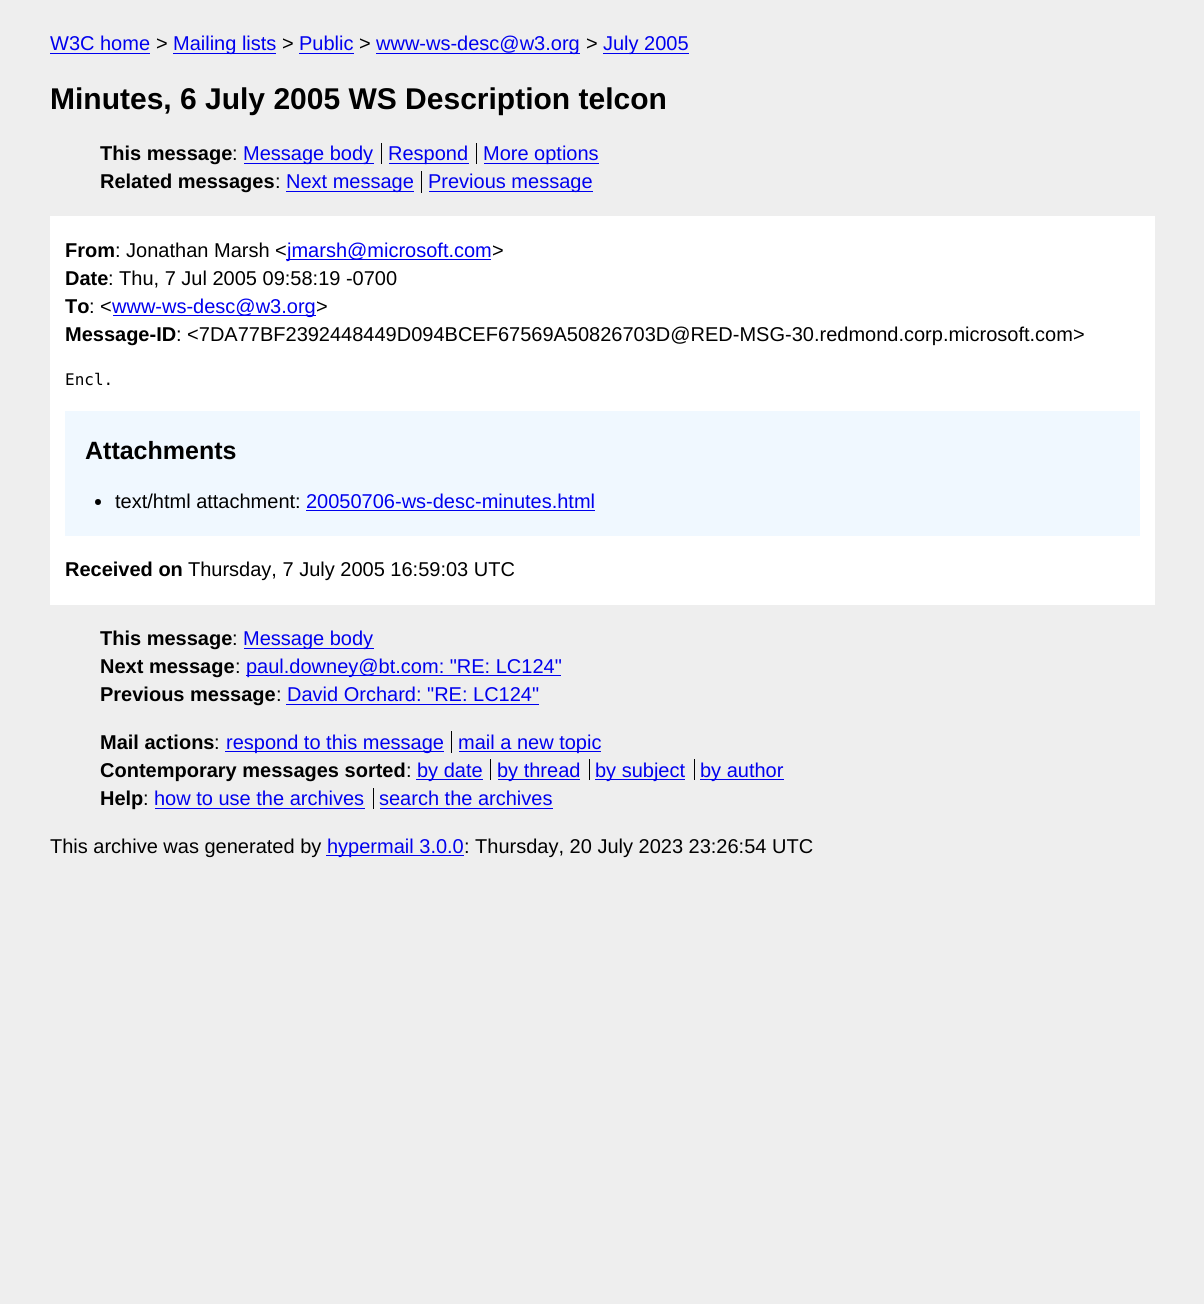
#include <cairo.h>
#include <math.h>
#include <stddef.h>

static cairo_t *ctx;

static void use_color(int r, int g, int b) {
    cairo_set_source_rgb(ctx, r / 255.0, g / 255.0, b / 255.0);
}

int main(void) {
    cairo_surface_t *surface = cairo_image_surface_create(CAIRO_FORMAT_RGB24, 1204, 1304);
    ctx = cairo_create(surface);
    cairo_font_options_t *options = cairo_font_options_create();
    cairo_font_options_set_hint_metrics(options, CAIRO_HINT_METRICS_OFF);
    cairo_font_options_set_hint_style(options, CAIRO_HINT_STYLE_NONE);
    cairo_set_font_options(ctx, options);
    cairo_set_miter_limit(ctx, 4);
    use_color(238, 238, 238);
    cairo_paint(ctx);
    cairo_select_font_face(ctx, "Liberation Sans", CAIRO_FONT_SLANT_NORMAL, CAIRO_FONT_WEIGHT_NORMAL);
    cairo_set_font_size(ctx, 20);
    use_color(0, 0, 238);
    cairo_move_to(ctx, 50, 50);
    cairo_show_text(ctx, "W3C home");
    cairo_rectangle(ctx, 50, 53, 100, 1);
    cairo_fill(ctx);
    use_color(0, 0, 0);
    cairo_move_to(ctx, 156, 50);
    cairo_show_text(ctx, ">");
    use_color(0, 0, 238);
    cairo_rectangle(ctx, 173, 53, 103, 1);
    cairo_fill(ctx);
    cairo_move_to(ctx, 173, 50);
    cairo_show_text(ctx, "Mailing lists");
    use_color(0, 0, 0);
    cairo_move_to(ctx, 282, 50);
    cairo_show_text(ctx, ">");
    use_color(0, 0, 238);
    cairo_move_to(ctx, 299, 50);
    cairo_show_text(ctx, "Public");
    cairo_rectangle(ctx, 299, 53, 55, 1);
    cairo_fill(ctx);
    use_color(0, 0, 0);
    cairo_move_to(ctx, 359, 50);
    cairo_show_text(ctx, ">");
    use_color(0, 0, 238);
    cairo_rectangle(ctx, 376, 53, 204, 1);
    cairo_fill(ctx);
    cairo_move_to(ctx, 376, 50);
    cairo_show_text(ctx, "www-ws-desc@w3.org");
    use_color(0, 0, 0);
    cairo_move_to(ctx, 586, 50);
    cairo_show_text(ctx, ">");
    use_color(0, 0, 238);
    cairo_rectangle(ctx, 603, 53, 86, 1);
    cairo_fill(ctx);
    cairo_move_to(ctx, 603, 50);
    cairo_show_text(ctx, "July 2005");
    cairo_select_font_face(ctx, "Liberation Sans", CAIRO_FONT_SLANT_NORMAL, CAIRO_FONT_WEIGHT_BOLD);
    cairo_set_font_size(ctx, 30);
    use_color(0, 0, 0);
    cairo_move_to(ctx, 50, 109);
    cairo_show_text(ctx, "Minutes, 6 July 2005 WS Description telcon");
    cairo_set_font_size(ctx, 20);
    cairo_move_to(ctx, 100, 160);
    cairo_show_text(ctx, "This message");
    cairo_select_font_face(ctx, "Liberation Sans", CAIRO_FONT_SLANT_NORMAL, CAIRO_FONT_WEIGHT_NORMAL);
    cairo_move_to(ctx, 232, 160);
    cairo_show_text(ctx, ":");
    use_color(0, 0, 238);
    cairo_rectangle(ctx, 244, 163, 130, 1);
    cairo_fill(ctx);
    cairo_move_to(ctx, 243, 160);
    cairo_show_text(ctx, "Message body");
    use_color(0, 0, 0);
    cairo_rectangle(ctx, 381, 143, 1, 21);
    cairo_fill(ctx);
    use_color(0, 0, 238);
    cairo_rectangle(ctx, 389, 163, 80, 1);
    cairo_fill(ctx);
    cairo_move_to(ctx, 388, 160);
    cairo_show_text(ctx, "Respond");
    cairo_rectangle(ctx, 484, 163, 115, 1);
    cairo_fill(ctx);
    cairo_move_to(ctx, 483, 160);
    cairo_show_text(ctx, "More options");
    use_color(0, 0, 0);
    cairo_rectangle(ctx, 476, 143, 1, 21);
    cairo_fill(ctx);
    cairo_select_font_face(ctx, "Liberation Sans", CAIRO_FONT_SLANT_NORMAL, CAIRO_FONT_WEIGHT_BOLD);
    cairo_move_to(ctx, 100, 188);
    cairo_show_text(ctx, "Related messages");
    cairo_select_font_face(ctx, "Liberation Sans", CAIRO_FONT_SLANT_NORMAL, CAIRO_FONT_WEIGHT_NORMAL);
    cairo_move_to(ctx, 275, 188);
    cairo_show_text(ctx, ":");
    use_color(0, 0, 238);
    cairo_rectangle(ctx, 286, 191, 128, 1);
    cairo_fill(ctx);
    cairo_move_to(ctx, 286, 188);
    cairo_show_text(ctx, "Next message");
    cairo_rectangle(ctx, 429, 191, 164, 1);
    cairo_fill(ctx);
    cairo_move_to(ctx, 428, 188);
    cairo_show_text(ctx, "Previous message");
    use_color(0, 0, 0);
    cairo_rectangle(ctx, 421, 171, 1, 22);
    cairo_fill(ctx);
    use_color(255, 255, 255);
    cairo_rectangle(ctx, 50, 216, 1105, 389);
    cairo_fill(ctx);
    cairo_select_font_face(ctx, "Liberation Sans", CAIRO_FONT_SLANT_NORMAL, CAIRO_FONT_WEIGHT_BOLD);
    use_color(0, 0, 0);
    cairo_move_to(ctx, 65, 257);
    cairo_show_text(ctx, "From");
    cairo_select_font_face(ctx, "Liberation Sans", CAIRO_FONT_SLANT_NORMAL, CAIRO_FONT_WEIGHT_NORMAL);
    cairo_move_to(ctx, 115, 257);
    cairo_show_text(ctx, ": Jonathan Marsh <");
    use_color(0, 0, 238);
    cairo_rectangle(ctx, 286, 259, 205, 1);
    cairo_fill(ctx);
    cairo_move_to(ctx, 287, 257);
    cairo_show_text(ctx, "jmarsh@microsoft.com");
    use_color(0, 0, 0);
    cairo_move_to(ctx, 492, 257);
    cairo_show_text(ctx, ">");
    cairo_select_font_face(ctx, "Liberation Sans", CAIRO_FONT_SLANT_NORMAL, CAIRO_FONT_WEIGHT_BOLD);
    cairo_move_to(ctx, 65, 285);
    cairo_show_text(ctx, "Date");
    cairo_select_font_face(ctx, "Liberation Sans", CAIRO_FONT_SLANT_NORMAL, CAIRO_FONT_WEIGHT_NORMAL);
    cairo_move_to(ctx, 108, 285);
    cairo_show_text(ctx, ": Thu, 7 Jul 2005 09:58:19 -0700");
    cairo_select_font_face(ctx, "Liberation Sans", CAIRO_FONT_SLANT_NORMAL, CAIRO_FONT_WEIGHT_BOLD);
    cairo_move_to(ctx, 65, 313);
    cairo_show_text(ctx, "To");
    cairo_select_font_face(ctx, "Liberation Sans", CAIRO_FONT_SLANT_NORMAL, CAIRO_FONT_WEIGHT_NORMAL);
    cairo_move_to(ctx, 89, 313);
    cairo_show_text(ctx, ": <");
    use_color(0, 0, 238);
    cairo_rectangle(ctx, 113, 315, 203, 1);
    cairo_fill(ctx);
    cairo_move_to(ctx, 112, 313);
    cairo_show_text(ctx, "www-ws-desc@w3.org");
    use_color(0, 0, 0);
    cairo_move_to(ctx, 316, 313);
    cairo_show_text(ctx, ">");
    cairo_select_font_face(ctx, "Liberation Sans", CAIRO_FONT_SLANT_NORMAL, CAIRO_FONT_WEIGHT_BOLD);
    cairo_move_to(ctx, 65, 341);
    cairo_show_text(ctx, "Message-ID");
    cairo_select_font_face(ctx, "Liberation Sans", CAIRO_FONT_SLANT_NORMAL, CAIRO_FONT_WEIGHT_NORMAL);
    cairo_move_to(ctx, 176, 341);
    cairo_show_text(ctx, ": <7DA77BF2392448449D094BCEF67569A50826703D@RED-MSG-30.redmond.corp.microsoft.com>");
    cairo_select_font_face(ctx, "DejaVu Sans Mono", CAIRO_FONT_SLANT_NORMAL, CAIRO_FONT_WEIGHT_NORMAL);
    cairo_set_font_size(ctx, 16);
    cairo_move_to(ctx, 65, 385);
    cairo_show_text(ctx, "Encl.");
    use_color(240, 248, 255);
    cairo_rectangle(ctx, 65, 411, 1075, 125);
    cairo_fill(ctx);
    cairo_select_font_face(ctx, "Liberation Sans", CAIRO_FONT_SLANT_NORMAL, CAIRO_FONT_WEIGHT_BOLD);
    cairo_set_font_size(ctx, 25);
    use_color(0, 0, 0);
    cairo_move_to(ctx, 85, 459);
    cairo_show_text(ctx, "Attachments");
    cairo_new_path(ctx);
    cairo_arc(ctx, 98, 502, 3, 0, 2 * M_PI);
    cairo_fill(ctx);
    cairo_select_font_face(ctx, "Liberation Sans", CAIRO_FONT_SLANT_NORMAL, CAIRO_FONT_WEIGHT_NORMAL);
    cairo_set_font_size(ctx, 20);
    cairo_move_to(ctx, 115, 508);
    cairo_show_text(ctx, "text/html attachment:");
    use_color(0, 0, 238);
    cairo_move_to(ctx, 306, 508);
    cairo_show_text(ctx, "20050706-ws-desc-minutes.html");
    cairo_rectangle(ctx, 306, 510, 289, 1);
    cairo_fill(ctx);
    cairo_select_font_face(ctx, "Liberation Sans", CAIRO_FONT_SLANT_NORMAL, CAIRO_FONT_WEIGHT_BOLD);
    use_color(0, 0, 0);
    cairo_move_to(ctx, 65, 576);
    cairo_show_text(ctx, "Received on");
    cairo_select_font_face(ctx, "Liberation Sans", CAIRO_FONT_SLANT_NORMAL, CAIRO_FONT_WEIGHT_NORMAL);
    cairo_move_to(ctx, 188, 576);
    cairo_show_text(ctx, "Thursday, 7 July 2005 16:59:03 UTC");
    cairo_select_font_face(ctx, "Liberation Sans", CAIRO_FONT_SLANT_NORMAL, CAIRO_FONT_WEIGHT_BOLD);
    cairo_move_to(ctx, 100, 645);
    cairo_show_text(ctx, "This message");
    cairo_select_font_face(ctx, "Liberation Sans", CAIRO_FONT_SLANT_NORMAL, CAIRO_FONT_WEIGHT_NORMAL);
    cairo_move_to(ctx, 232, 645);
    cairo_show_text(ctx, ":");
    use_color(0, 0, 238);
    cairo_rectangle(ctx, 244, 648, 130, 1);
    cairo_fill(ctx);
    cairo_move_to(ctx, 243, 645);
    cairo_show_text(ctx, "Message body");
    cairo_select_font_face(ctx, "Liberation Sans", CAIRO_FONT_SLANT_NORMAL, CAIRO_FONT_WEIGHT_BOLD);
    use_color(0, 0, 0);
    cairo_move_to(ctx, 100, 673);
    cairo_show_text(ctx, "Next message");
    cairo_select_font_face(ctx, "Liberation Sans", CAIRO_FONT_SLANT_NORMAL, CAIRO_FONT_WEIGHT_NORMAL);
    cairo_move_to(ctx, 235, 673);
    cairo_show_text(ctx, ":");
    use_color(0, 0, 238);
    cairo_rectangle(ctx, 246, 675, 315, 1);
    cairo_fill(ctx);
    cairo_move_to(ctx, 246, 673);
    cairo_show_text(ctx, "paul.downey@bt.com: \"RE: LC124\"");
    cairo_select_font_face(ctx, "Liberation Sans", CAIRO_FONT_SLANT_NORMAL, CAIRO_FONT_WEIGHT_BOLD);
    use_color(0, 0, 0);
    cairo_move_to(ctx, 100, 701);
    cairo_show_text(ctx, "Previous message");
    cairo_select_font_face(ctx, "Liberation Sans", CAIRO_FONT_SLANT_NORMAL, CAIRO_FONT_WEIGHT_NORMAL);
    cairo_move_to(ctx, 276, 701);
    cairo_show_text(ctx, ":");
    use_color(0, 0, 238);
    cairo_move_to(ctx, 287, 701);
    cairo_show_text(ctx, "David Orchard: \"RE: LC124\"");
    cairo_rectangle(ctx, 286, 704, 253, 1);
    cairo_fill(ctx);
    cairo_select_font_face(ctx, "Liberation Sans", CAIRO_FONT_SLANT_NORMAL, CAIRO_FONT_WEIGHT_BOLD);
    use_color(0, 0, 0);
    cairo_move_to(ctx, 100, 749);
    cairo_show_text(ctx, "Mail actions");
    cairo_select_font_face(ctx, "Liberation Sans", CAIRO_FONT_SLANT_NORMAL, CAIRO_FONT_WEIGHT_NORMAL);
    cairo_move_to(ctx, 214, 749);
    cairo_show_text(ctx, ":");
    use_color(0, 0, 238);
    cairo_rectangle(ctx, 225, 751, 219, 1);
    cairo_fill(ctx);
    cairo_move_to(ctx, 226, 749);
    cairo_show_text(ctx, "respond to this message");
    cairo_rectangle(ctx, 459, 751, 142, 1);
    cairo_fill(ctx);
    cairo_move_to(ctx, 458, 749);
    cairo_show_text(ctx, "mail a new topic");
    use_color(0, 0, 0);
    cairo_rectangle(ctx, 451, 731, 1, 22);
    cairo_fill(ctx);
    cairo_select_font_face(ctx, "Liberation Sans", CAIRO_FONT_SLANT_NORMAL, CAIRO_FONT_WEIGHT_BOLD);
    cairo_move_to(ctx, 100, 777);
    cairo_show_text(ctx, "Contemporary messages sorted");
    cairo_select_font_face(ctx, "Liberation Sans", CAIRO_FONT_SLANT_NORMAL, CAIRO_FONT_WEIGHT_NORMAL);
    cairo_move_to(ctx, 406, 777);
    cairo_show_text(ctx, ":");
    use_color(0, 0, 238);
    cairo_rectangle(ctx, 416, 779, 67, 1);
    cairo_fill(ctx);
    cairo_move_to(ctx, 417, 777);
    cairo_show_text(ctx, "by date");
    cairo_rectangle(ctx, 498, 779, 82, 1);
    cairo_fill(ctx);
    cairo_move_to(ctx, 497, 777);
    cairo_show_text(ctx, "by thread");
    use_color(0, 0, 0);
    cairo_rectangle(ctx, 490, 759, 1, 21);
    cairo_fill(ctx);
    use_color(0, 0, 238);
    cairo_rectangle(ctx, 595, 779, 90, 1);
    cairo_fill(ctx);
    cairo_move_to(ctx, 595, 777);
    cairo_show_text(ctx, "by subject");
    use_color(0, 0, 0);
    cairo_rectangle(ctx, 589, 759, 1, 21);
    cairo_fill(ctx);
    use_color(0, 0, 238);
    cairo_rectangle(ctx, 700, 779, 84, 1);
    cairo_fill(ctx);
    cairo_move_to(ctx, 700, 777);
    cairo_show_text(ctx, "by author");
    use_color(0, 0, 0);
    cairo_rectangle(ctx, 694, 759, 1, 21);
    cairo_fill(ctx);
    cairo_select_font_face(ctx, "Liberation Sans", CAIRO_FONT_SLANT_NORMAL, CAIRO_FONT_WEIGHT_BOLD);
    cairo_move_to(ctx, 100, 805);
    cairo_show_text(ctx, "Help");
    cairo_select_font_face(ctx, "Liberation Sans", CAIRO_FONT_SLANT_NORMAL, CAIRO_FONT_WEIGHT_NORMAL);
    cairo_move_to(ctx, 143, 805);
    cairo_show_text(ctx, ":");
    use_color(0, 0, 238);
    cairo_move_to(ctx, 154, 805);
    cairo_show_text(ctx, "how to use the archives");
    cairo_rectangle(ctx, 155, 808, 210, 1);
    cairo_fill(ctx);
    cairo_move_to(ctx, 379, 805);
    cairo_show_text(ctx, "search the archives");
    use_color(0, 0, 0);
    cairo_rectangle(ctx, 373, 788, 1, 21);
    cairo_fill(ctx);
    use_color(0, 0, 238);
    cairo_rectangle(ctx, 380, 808, 173, 1);
    cairo_fill(ctx);
    use_color(0, 0, 0);
    cairo_move_to(ctx, 50, 853);
    cairo_show_text(ctx, "This archive was generated by");
    use_color(0, 0, 238);
    cairo_rectangle(ctx, 326, 855, 138, 1);
    cairo_fill(ctx);
    cairo_move_to(ctx, 327, 853);
    cairo_show_text(ctx, "hypermail 3.0.0");
    use_color(0, 0, 0);
    cairo_move_to(ctx, 464, 853);
    cairo_show_text(ctx, ": Thursday, 20 July 2023 23:26:54 UTC");
    cairo_surface_write_to_png(surface, "result.png");
    cairo_font_options_destroy(options);
    cairo_destroy(ctx);
    cairo_surface_destroy(surface);
    return 0;
}
